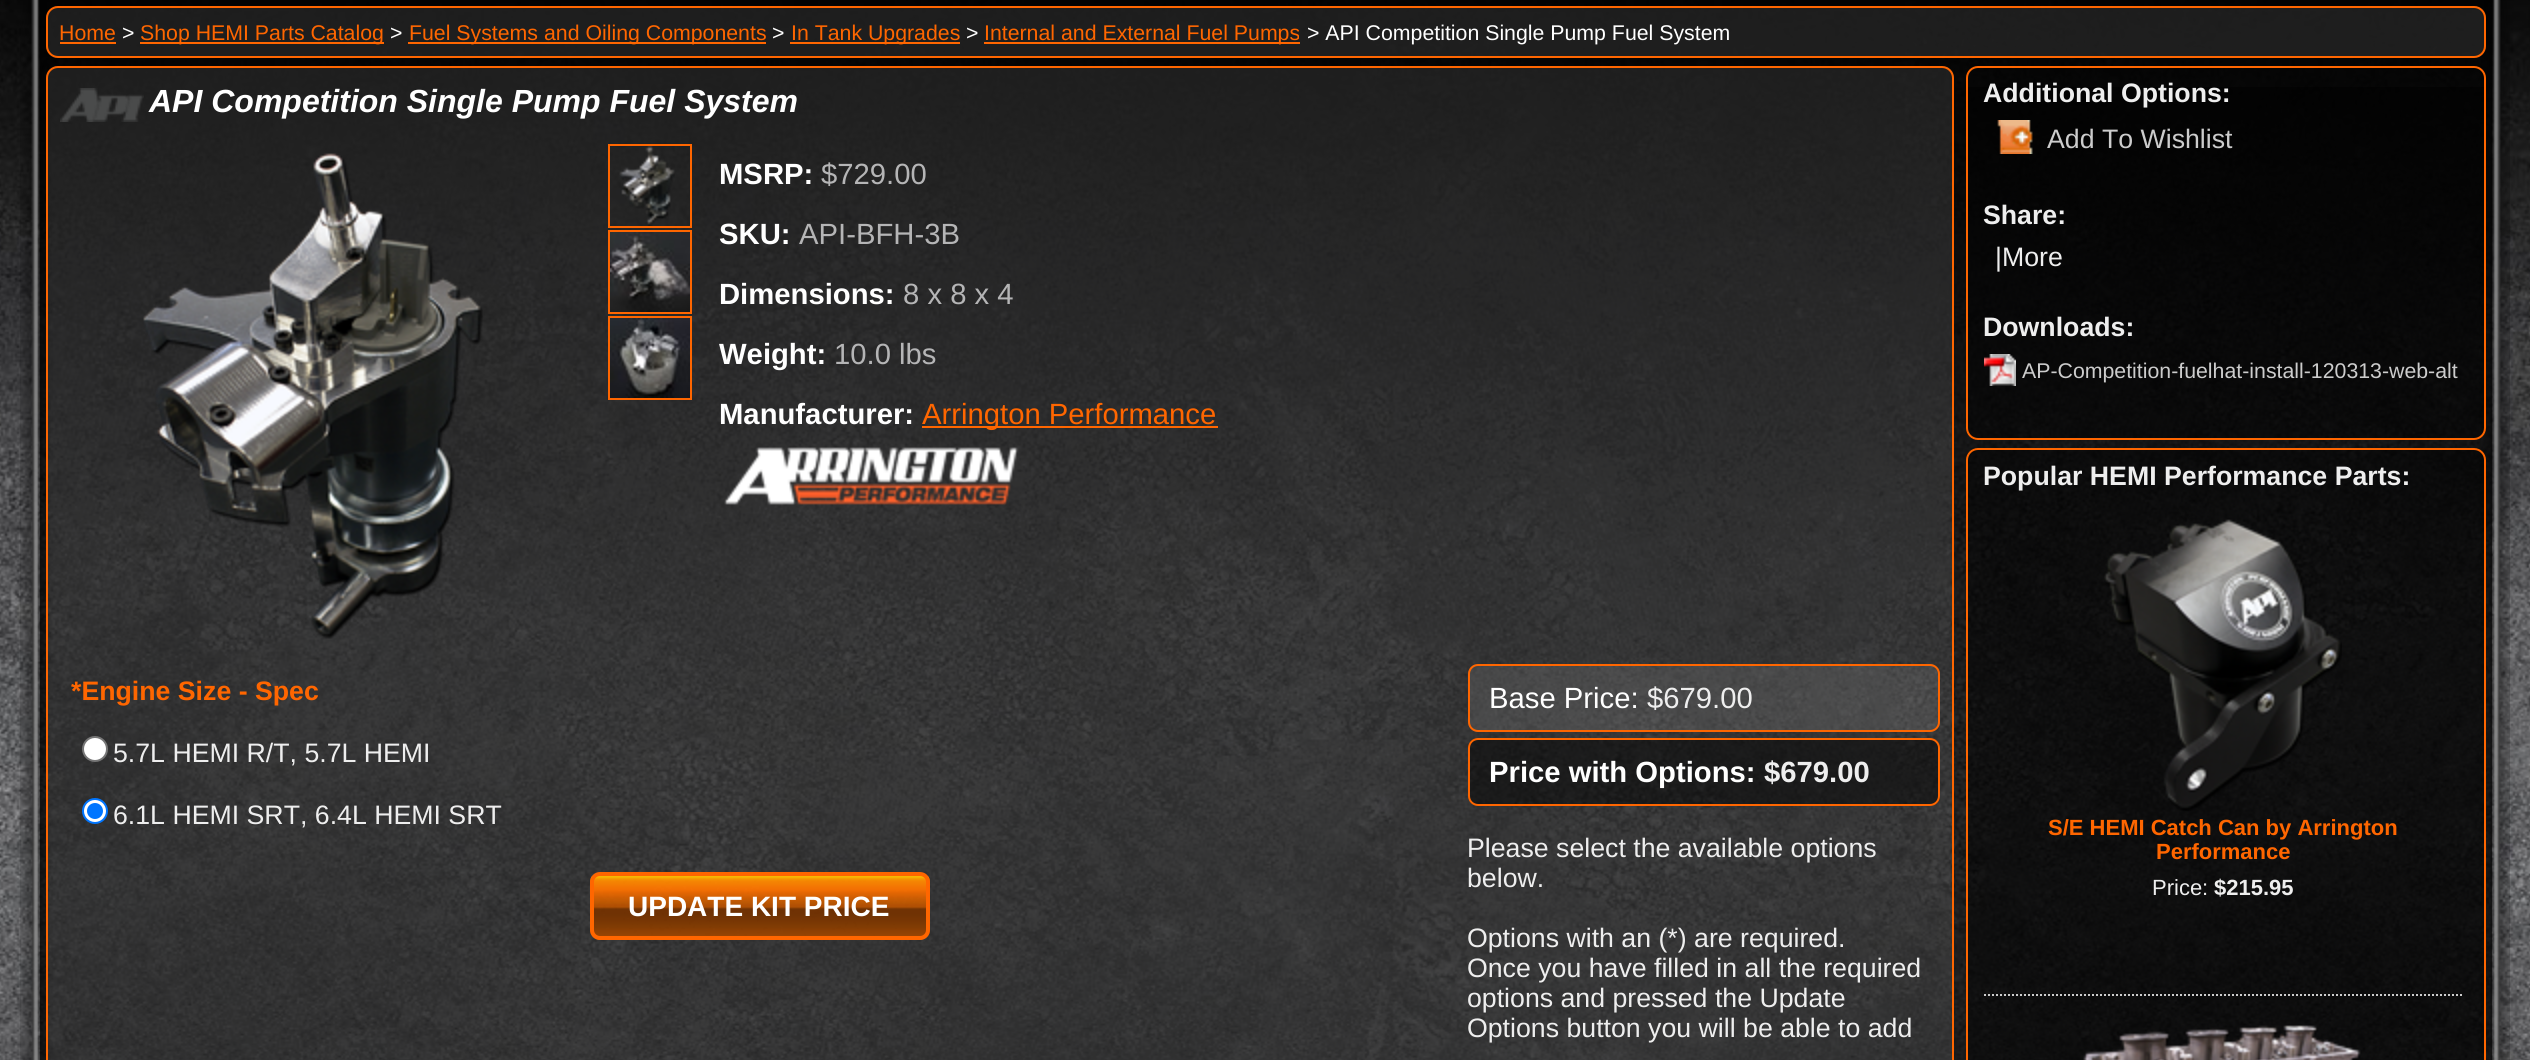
#include <cairo.h>
#include <math.h>
#include <stddef.h>

static cairo_t *ctx;

static void use_color(int r, int g, int b) {
    cairo_set_source_rgb(ctx, r / 255.0, g / 255.0, b / 255.0);
}

static void round_rect(double x, double y, double w, double h, double r) {
    cairo_new_sub_path(ctx);
    cairo_arc(ctx, x + w - r, y + h - r, r, 0, M_PI / 2);
    cairo_arc(ctx, x + r, y + h - r, r, M_PI / 2, M_PI);
    cairo_arc(ctx, x + r, y + r, r, M_PI, 1.5 * M_PI);
    cairo_arc(ctx, x + w - r, y + r, r, 1.5 * M_PI, 2 * M_PI);
    cairo_close_path(ctx);
}

static void picture(const char *path, double x, double y, double w, double h) {
    cairo_surface_t *image = cairo_image_surface_create_from_png(path);
    cairo_save(ctx);
    cairo_set_source_surface(ctx, image, x, y);
    cairo_rectangle(ctx, x, y, w, h);
    cairo_fill(ctx);
    cairo_restore(ctx);
    cairo_surface_destroy(image);
}

int main(void) {
    cairo_surface_t *surface = cairo_image_surface_create(CAIRO_FORMAT_RGB24, 2530, 1060);
    ctx = cairo_create(surface);
    cairo_font_options_t *options = cairo_font_options_create();
    cairo_font_options_set_hint_metrics(options, CAIRO_HINT_METRICS_OFF);
    cairo_font_options_set_hint_style(options, CAIRO_HINT_STYLE_NONE);
    cairo_set_font_options(ctx, options);
    cairo_set_miter_limit(ctx, 4);
    use_color(255, 255, 255);
    cairo_paint(ctx);
    picture("img1.png", 0, 0, 2530, 1060);
    picture("img2.png", 20, 0, 2490, 1060);
    picture("img3.png", 46, 6, 2440, 52);
    round_rect(47, 7, 2438, 50, 11);
    use_color(255, 102, 0);
    cairo_stroke(ctx);
    cairo_select_font_face(ctx, "Liberation Sans", CAIRO_FONT_SLANT_NORMAL, CAIRO_FONT_WEIGHT_NORMAL);
    cairo_set_font_size(ctx, 21.3);
    cairo_move_to(ctx, 59, 40);
    cairo_show_text(ctx, "Home");
    cairo_rectangle(ctx, 60, 42, 56, 2);
    cairo_fill(ctx);
    use_color(255, 255, 255);
    cairo_move_to(ctx, 122, 40);
    cairo_show_text(ctx, ">");
    use_color(255, 102, 0);
    cairo_rectangle(ctx, 140, 42, 244, 2);
    cairo_fill(ctx);
    cairo_move_to(ctx, 140, 40);
    cairo_show_text(ctx, "Shop HEMI Parts Catalog");
    use_color(255, 255, 255);
    cairo_move_to(ctx, 390, 40);
    cairo_show_text(ctx, ">");
    use_color(255, 102, 0);
    cairo_rectangle(ctx, 408, 42, 358, 2);
    cairo_fill(ctx);
    cairo_move_to(ctx, 409, 40);
    cairo_show_text(ctx, "Fuel Systems and Oiling Components");
    use_color(255, 255, 255);
    cairo_move_to(ctx, 772, 40);
    cairo_show_text(ctx, ">");
    use_color(255, 102, 0);
    cairo_rectangle(ctx, 790, 42, 170, 2);
    cairo_fill(ctx);
    cairo_move_to(ctx, 791, 40);
    cairo_show_text(ctx, "In Tank Upgrades");
    use_color(255, 255, 255);
    cairo_move_to(ctx, 966, 40);
    cairo_show_text(ctx, ">");
    use_color(255, 102, 0);
    cairo_rectangle(ctx, 984, 42, 316, 2);
    cairo_fill(ctx);
    cairo_move_to(ctx, 984, 40);
    cairo_show_text(ctx, "Internal and External Fuel Pumps");
    use_color(255, 255, 255);
    cairo_move_to(ctx, 1307, 40);
    cairo_show_text(ctx, "> API Competition Single Pump Fuel System");
    picture("img4.png", 46, 66, 1908, 994);
    round_rect(47, 67, 1906, 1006, 11);
    use_color(255, 102, 0);
    cairo_stroke(ctx);
    picture("img5.png", 60, 88, 84, 34);
    cairo_select_font_face(ctx, "Liberation Sans", CAIRO_FONT_SLANT_ITALIC, CAIRO_FONT_WEIGHT_BOLD);
    cairo_set_font_size(ctx, 32);
    use_color(255, 255, 255);
    cairo_move_to(ctx, 149, 112);
    cairo_show_text(ctx, "API Competition Single Pump Fuel System");
    picture("img6.png", 143, 153, 340, 486);
    cairo_rectangle(ctx, 609, 145, 82, 82);
    use_color(255, 102, 0);
    cairo_stroke(ctx);
    picture("img7.png", 619, 146, 56, 80);
    cairo_rectangle(ctx, 609, 231, 82, 82);
    cairo_stroke(ctx);
    picture("img8.png", 610, 232, 80, 80);
    cairo_rectangle(ctx, 609, 317, 82, 82);
    cairo_stroke(ctx);
    picture("img9.png", 610, 318, 80, 80);
    cairo_select_font_face(ctx, "Liberation Sans", CAIRO_FONT_SLANT_NORMAL, CAIRO_FONT_WEIGHT_BOLD);
    cairo_set_font_size(ctx, 29.25);
    use_color(255, 255, 255);
    cairo_move_to(ctx, 719, 184);
    cairo_show_text(ctx, "MSRP:");
    cairo_select_font_face(ctx, "Liberation Sans", CAIRO_FONT_SLANT_NORMAL, CAIRO_FONT_WEIGHT_NORMAL);
    use_color(181, 181, 182);
    cairo_move_to(ctx, 821, 184);
    cairo_show_text(ctx, "$729.00");
    cairo_select_font_face(ctx, "Liberation Sans", CAIRO_FONT_SLANT_NORMAL, CAIRO_FONT_WEIGHT_BOLD);
    use_color(255, 255, 255);
    cairo_move_to(ctx, 719, 244);
    cairo_show_text(ctx, "SKU:");
    cairo_select_font_face(ctx, "Liberation Sans", CAIRO_FONT_SLANT_NORMAL, CAIRO_FONT_WEIGHT_NORMAL);
    use_color(181, 181, 182);
    cairo_move_to(ctx, 799, 244);
    cairo_show_text(ctx, "API-BFH-3B");
    cairo_select_font_face(ctx, "Liberation Sans", CAIRO_FONT_SLANT_NORMAL, CAIRO_FONT_WEIGHT_BOLD);
    use_color(255, 255, 255);
    cairo_move_to(ctx, 719, 304);
    cairo_show_text(ctx, "Dimensions:");
    cairo_select_font_face(ctx, "Liberation Sans", CAIRO_FONT_SLANT_NORMAL, CAIRO_FONT_WEIGHT_NORMAL);
    use_color(181, 181, 182);
    cairo_move_to(ctx, 903, 304);
    cairo_show_text(ctx, "8 x 8 x 4");
    cairo_select_font_face(ctx, "Liberation Sans", CAIRO_FONT_SLANT_NORMAL, CAIRO_FONT_WEIGHT_BOLD);
    use_color(255, 255, 255);
    cairo_move_to(ctx, 719, 364);
    cairo_show_text(ctx, "Weight:");
    cairo_select_font_face(ctx, "Liberation Sans", CAIRO_FONT_SLANT_NORMAL, CAIRO_FONT_WEIGHT_NORMAL);
    use_color(181, 181, 182);
    cairo_move_to(ctx, 834, 364);
    cairo_show_text(ctx, "10.0 lbs");
    cairo_select_font_face(ctx, "Liberation Sans", CAIRO_FONT_SLANT_NORMAL, CAIRO_FONT_WEIGHT_BOLD);
    use_color(255, 255, 255);
    cairo_move_to(ctx, 719, 424);
    cairo_show_text(ctx, "Manufacturer:");
    use_color(255, 102, 0);
    cairo_rectangle(ctx, 922, 426, 296, 2);
    cairo_fill(ctx);
    cairo_select_font_face(ctx, "Liberation Sans", CAIRO_FONT_SLANT_NORMAL, CAIRO_FONT_WEIGHT_NORMAL);
    cairo_move_to(ctx, 922, 424);
    cairo_show_text(ctx, "Arrington Performance");
    picture("img10.png", 724, 447, 295, 58);
    cairo_select_font_face(ctx, "Liberation Sans", CAIRO_FONT_SLANT_NORMAL, CAIRO_FONT_WEIGHT_BOLD);
    cairo_set_font_size(ctx, 26.7);
    cairo_move_to(ctx, 71, 700);
    cairo_show_text(ctx, "*Engine Size - Spec");
    use_color(255, 255, 255);
    cairo_new_path(ctx);
    cairo_arc(ctx, 95, 749, 12, 0, 2 * M_PI);
    cairo_fill_preserve(ctx);
    use_color(118, 118, 118);
    cairo_stroke(ctx);
    cairo_select_font_face(ctx, "Liberation Sans", CAIRO_FONT_SLANT_NORMAL, CAIRO_FONT_WEIGHT_NORMAL);
    use_color(238, 238, 238);
    cairo_move_to(ctx, 113, 762);
    cairo_show_text(ctx, "5.7L HEMI R/T, 5.7L HEMI");
    use_color(255, 255, 255);
    cairo_new_path(ctx);
    cairo_arc(ctx, 95, 811, 12, 0, 2 * M_PI);
    cairo_fill_preserve(ctx);
    use_color(0, 117, 255);
    cairo_stroke(ctx);
    cairo_arc(ctx, 95, 811, 8, 0, 2 * M_PI);
    cairo_fill(ctx);
    use_color(238, 238, 238);
    cairo_move_to(ctx, 113, 824);
    cairo_show_text(ctx, "6.1L HEMI SRT, 6.4L HEMI SRT");
    picture("img11.png", 590, 876, 340, 64);
    round_rect(592, 874, 336, 64, 8);
    use_color(255, 102, 0);
    cairo_set_line_width(ctx, 4);
    cairo_stroke(ctx);
    cairo_select_font_face(ctx, "Liberation Sans", CAIRO_FONT_SLANT_NORMAL, CAIRO_FONT_WEIGHT_BOLD);
    cairo_set_font_size(ctx, 28);
    use_color(255, 255, 255);
    cairo_move_to(ctx, 628, 916);
    cairo_show_text(ctx, "UPDATE KIT PRICE");
    picture("img12.png", 1468, 664, 472, 68);
    round_rect(1469, 665, 470, 66, 9);
    use_color(255, 102, 0);
    cairo_set_line_width(ctx, 2);
    cairo_stroke(ctx);
    cairo_select_font_face(ctx, "Liberation Sans", CAIRO_FONT_SLANT_NORMAL, CAIRO_FONT_WEIGHT_NORMAL);
    cairo_set_font_size(ctx, 29.25);
    use_color(255, 255, 255);
    cairo_move_to(ctx, 1489, 708);
    cairo_show_text(ctx, "Base Price:");
    use_color(238, 238, 238);
    cairo_move_to(ctx, 1647, 708);
    cairo_show_text(ctx, "$679.00");
    picture("img13.png", 1468, 738, 472, 68);
    round_rect(1469, 739, 470, 66, 9);
    use_color(255, 102, 0);
    cairo_stroke(ctx);
    cairo_select_font_face(ctx, "Liberation Sans", CAIRO_FONT_SLANT_NORMAL, CAIRO_FONT_WEIGHT_BOLD);
    use_color(255, 255, 255);
    cairo_move_to(ctx, 1489, 782);
    cairo_show_text(ctx, "Price with Options:");
    use_color(238, 238, 238);
    cairo_move_to(ctx, 1764, 782);
    cairo_show_text(ctx, "$679.00");
    cairo_select_font_face(ctx, "Liberation Sans", CAIRO_FONT_SLANT_NORMAL, CAIRO_FONT_WEIGHT_NORMAL);
    cairo_set_font_size(ctx, 26.7);
    cairo_move_to(ctx, 1467, 857);
    cairo_show_text(ctx, "Please select the available options");
    cairo_move_to(ctx, 1467, 887);
    cairo_show_text(ctx, "below.");
    cairo_move_to(ctx, 1467, 947);
    cairo_show_text(ctx, "Options with an (*) are required.");
    cairo_move_to(ctx, 1467, 977);
    cairo_show_text(ctx, "Once you have filled in all the required");
    cairo_move_to(ctx, 1467, 1007);
    cairo_show_text(ctx, "options and pressed the Update");
    cairo_move_to(ctx, 1467, 1037);
    cairo_show_text(ctx, "Options button you will be able to add");
    picture("img14.png", 1966, 87, 520, 353);
    round_rect(1967, 67, 518, 372, 11);
    use_color(255, 102, 0);
    cairo_stroke(ctx);
    cairo_select_font_face(ctx, "Liberation Sans", CAIRO_FONT_SLANT_NORMAL, CAIRO_FONT_WEIGHT_BOLD);
    use_color(238, 238, 238);
    cairo_move_to(ctx, 1983, 102);
    cairo_show_text(ctx, "Additional Options:");
    picture("img15.png", 1997, 120, 36, 34);
    cairo_select_font_face(ctx, "Liberation Sans", CAIRO_FONT_SLANT_NORMAL, CAIRO_FONT_WEIGHT_NORMAL);
    use_color(204, 204, 204);
    cairo_move_to(ctx, 2047, 148);
    cairo_show_text(ctx, "Add To Wishlist");
    cairo_select_font_face(ctx, "Liberation Sans", CAIRO_FONT_SLANT_NORMAL, CAIRO_FONT_WEIGHT_BOLD);
    use_color(238, 238, 238);
    cairo_move_to(ctx, 1983, 224);
    cairo_show_text(ctx, "Share:");
    cairo_select_font_face(ctx, "Liberation Sans", CAIRO_FONT_SLANT_NORMAL, CAIRO_FONT_WEIGHT_NORMAL);
    cairo_move_to(ctx, 1995, 266);
    cairo_show_text(ctx, "|More");
    cairo_select_font_face(ctx, "Liberation Sans", CAIRO_FONT_SLANT_NORMAL, CAIRO_FONT_WEIGHT_BOLD);
    cairo_move_to(ctx, 1983, 336);
    cairo_show_text(ctx, "Downloads:");
    picture("img16.png", 1984, 354, 32, 32);
    cairo_select_font_face(ctx, "Liberation Sans", CAIRO_FONT_SLANT_NORMAL, CAIRO_FONT_WEIGHT_NORMAL);
    cairo_set_font_size(ctx, 21.3);
    use_color(204, 204, 204);
    cairo_move_to(ctx, 2022, 378);
    cairo_show_text(ctx, "AP-Competition-fuelhat-install-120313-web-alt");
    picture("img17.png", 1966, 448, 520, 612);
    round_rect(1967, 449, 518, 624, 11);
    use_color(255, 102, 0);
    cairo_stroke(ctx);
    cairo_select_font_face(ctx, "Liberation Sans", CAIRO_FONT_SLANT_NORMAL, CAIRO_FONT_WEIGHT_BOLD);
    cairo_set_font_size(ctx, 26.7);
    use_color(238, 238, 238);
    cairo_move_to(ctx, 1983, 485);
    cairo_show_text(ctx, "Popular HEMI Performance Parts:");
    picture("img18.png", 2104, 519, 238, 292);
    cairo_set_font_size(ctx, 22);
    use_color(255, 102, 0);
    cairo_move_to(ctx, 2048, 835);
    cairo_show_text(ctx, "S/E HEMI Catch Can by Arrington");
    cairo_move_to(ctx, 2156, 859);
    cairo_show_text(ctx, "Performance");
    cairo_select_font_face(ctx, "Liberation Sans", CAIRO_FONT_SLANT_NORMAL, CAIRO_FONT_WEIGHT_NORMAL);
    use_color(238, 238, 238);
    cairo_move_to(ctx, 2152, 895);
    cairo_show_text(ctx, "Price:");
    cairo_select_font_face(ctx, "Liberation Sans", CAIRO_FONT_SLANT_NORMAL, CAIRO_FONT_WEIGHT_BOLD);
    cairo_move_to(ctx, 2214, 895);
    cairo_show_text(ctx, "$215.95");
    cairo_new_path(ctx);
    cairo_move_to(ctx, 1984, 995);
    cairo_line_to(ctx, 2464, 995);
    use_color(204, 204, 204);
    cairo_set_dash(ctx, (double[]){2, 2}, 2, 0);
    cairo_stroke(ctx);
    picture("img19.png", 2083, 1025, 278, 35);
    cairo_surface_write_to_png(surface, "result.png");
    cairo_font_options_destroy(options);
    cairo_destroy(ctx);
    cairo_surface_destroy(surface);
    return 0;
}
